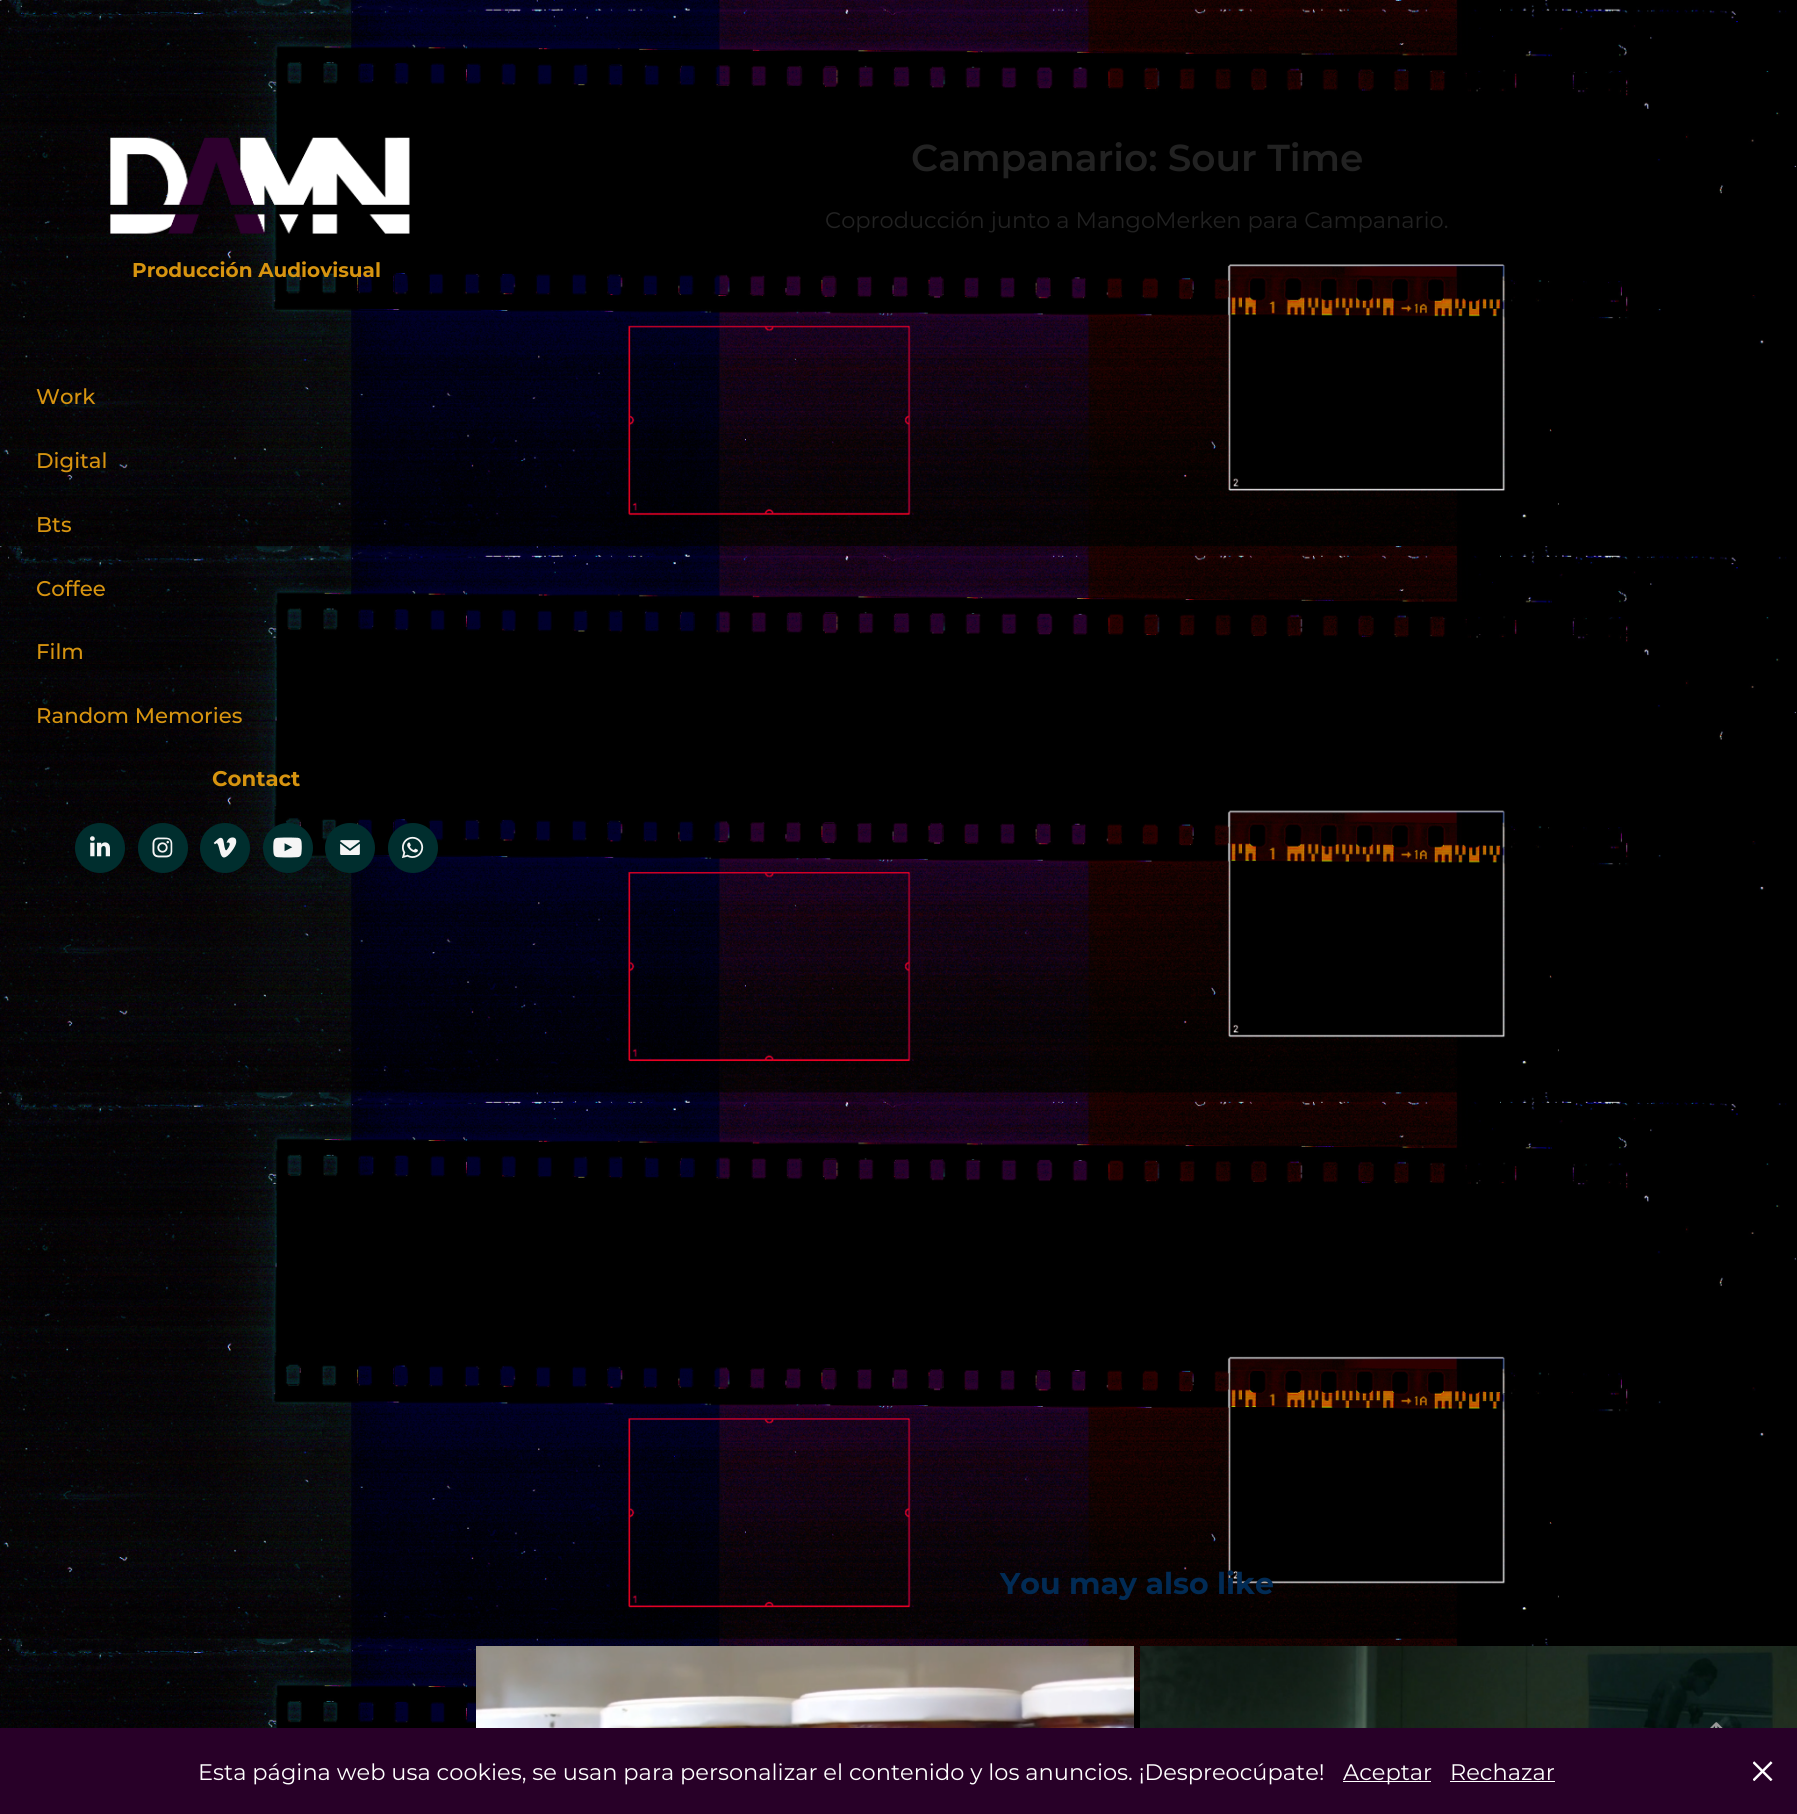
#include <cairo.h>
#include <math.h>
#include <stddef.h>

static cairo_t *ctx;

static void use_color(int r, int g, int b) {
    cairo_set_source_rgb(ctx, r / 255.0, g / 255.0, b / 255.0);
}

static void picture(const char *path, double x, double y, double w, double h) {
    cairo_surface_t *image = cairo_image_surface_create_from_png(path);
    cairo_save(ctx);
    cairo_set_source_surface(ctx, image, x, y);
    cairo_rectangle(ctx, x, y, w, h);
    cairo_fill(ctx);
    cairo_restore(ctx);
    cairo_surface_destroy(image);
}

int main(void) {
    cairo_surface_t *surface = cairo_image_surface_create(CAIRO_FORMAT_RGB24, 1797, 1814);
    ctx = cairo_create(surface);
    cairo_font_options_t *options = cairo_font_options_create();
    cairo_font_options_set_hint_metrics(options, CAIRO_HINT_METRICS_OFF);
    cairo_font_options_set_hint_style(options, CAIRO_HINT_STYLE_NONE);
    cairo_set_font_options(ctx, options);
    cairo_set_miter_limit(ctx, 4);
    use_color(255, 255, 255);
    cairo_paint(ctx);
    picture("img1.png", 0, 0, 1797, 1728);
    picture("img2.png", 110, 137, 300, 97);
    cairo_select_font_face(ctx, "Montserrat", CAIRO_FONT_SLANT_NORMAL, CAIRO_FONT_WEIGHT_BOLD);
    cairo_set_font_size(ctx, 20);
    use_color(215, 148, 16);
    cairo_move_to(ctx, 132, 277);
    cairo_show_text(ctx, "Producción Audiovisual");
    cairo_select_font_face(ctx, "Montserrat Medium", CAIRO_FONT_SLANT_NORMAL, CAIRO_FONT_WEIGHT_NORMAL);
    cairo_set_font_size(ctx, 21.25);
    cairo_move_to(ctx, 36, 404);
    cairo_show_text(ctx, "Work");
    cairo_move_to(ctx, 36, 468);
    cairo_show_text(ctx, "Digital");
    cairo_move_to(ctx, 36, 532);
    cairo_show_text(ctx, "Bts");
    cairo_move_to(ctx, 36, 596);
    cairo_show_text(ctx, "Coffee");
    cairo_move_to(ctx, 36, 659);
    cairo_show_text(ctx, "Film");
    cairo_move_to(ctx, 36, 723);
    cairo_show_text(ctx, "Random Memories");
    cairo_select_font_face(ctx, "Montserrat", CAIRO_FONT_SLANT_NORMAL, CAIRO_FONT_WEIGHT_BOLD);
    cairo_move_to(ctx, 212, 786);
    cairo_show_text(ctx, "Contact");
    use_color(0, 46, 46);
    cairo_new_path(ctx);
    cairo_arc(ctx, 100, 848, 25, 0, 2 * M_PI);
    cairo_fill(ctx);
    picture("img3.png", 90, 836, 20, 21);
    cairo_arc(ctx, 163, 848, 25, 0, 2 * M_PI);
    cairo_fill(ctx);
    picture("img4.png", 152, 837, 21, 21);
    cairo_arc(ctx, 225, 848, 25, 0, 2 * M_PI);
    cairo_fill(ctx);
    picture("img5.png", 213, 837, 24, 21);
    cairo_arc(ctx, 288, 848, 25, 0, 2 * M_PI);
    cairo_fill(ctx);
    picture("img6.png", 273, 837, 29, 21);
    cairo_arc(ctx, 350, 848, 25, 0, 2 * M_PI);
    cairo_fill(ctx);
    picture("img7.png", 340, 840, 20, 15);
    cairo_arc(ctx, 413, 848, 25, 0, 2 * M_PI);
    cairo_fill(ctx);
    picture("img8.png", 402, 836, 22, 22);
    cairo_select_font_face(ctx, "Montserrat SemiBold", CAIRO_FONT_SLANT_NORMAL, CAIRO_FONT_WEIGHT_NORMAL);
    cairo_set_font_size(ctx, 37.5);
    use_color(34, 34, 34);
    cairo_move_to(ctx, 911, 171);
    cairo_show_text(ctx, "Campanario: Sour Time");
    cairo_select_font_face(ctx, "Montserrat", CAIRO_FONT_SLANT_NORMAL, CAIRO_FONT_WEIGHT_NORMAL);
    cairo_set_font_size(ctx, 22.5);
    cairo_move_to(ctx, 825, 228);
    cairo_show_text(ctx, "Coproducción junto a MangoMerken para Campanario.");
    cairo_select_font_face(ctx, "Montserrat", CAIRO_FONT_SLANT_NORMAL, CAIRO_FONT_WEIGHT_BOLD);
    cairo_set_font_size(ctx, 30);
    use_color(1, 43, 85);
    cairo_move_to(ctx, 1000, 1594);
    cairo_show_text(ctx, "You may also like");
    picture("img9.png", 476, 1646, 658, 82);
    picture("img10.png", 1140, 1646, 657, 82);
    picture("img11.png", 1710, 1722, 13, 6);
    use_color(40, 0, 40);
    cairo_rectangle(ctx, 0, 1728, 1797, 86);
    cairo_fill(ctx);
    cairo_select_font_face(ctx, "Montserrat", CAIRO_FONT_SLANT_NORMAL, CAIRO_FONT_WEIGHT_NORMAL);
    cairo_set_font_size(ctx, 22.5);
    use_color(255, 255, 255);
    cairo_move_to(ctx, 198, 1780);
    cairo_show_text(ctx, "Esta página web usa cookies, se usan para personalizar el contenido y los anuncios. ¡Despreocúpate!");
    cairo_rectangle(ctx, 1343, 1781, 88, 1);
    cairo_fill(ctx);
    cairo_move_to(ctx, 1343, 1780);
    cairo_show_text(ctx, "Aceptar");
    cairo_move_to(ctx, 1450, 1780);
    cairo_show_text(ctx, "Rechazar");
    cairo_rectangle(ctx, 1450, 1781, 105, 1);
    cairo_fill(ctx);
    picture("img12.png", 1753, 1761, 20, 20);
    cairo_surface_write_to_png(surface, "result.png");
    cairo_font_options_destroy(options);
    cairo_destroy(ctx);
    cairo_surface_destroy(surface);
    return 0;
}
